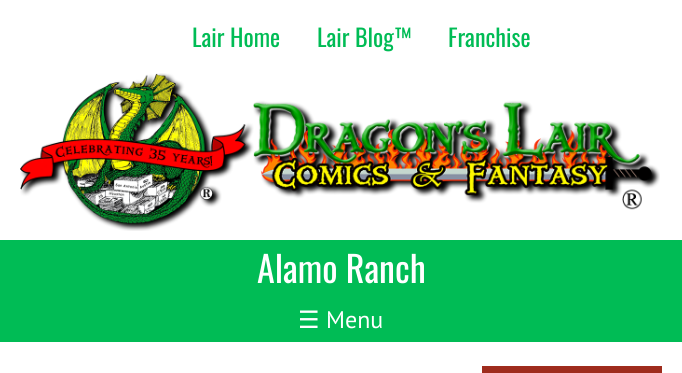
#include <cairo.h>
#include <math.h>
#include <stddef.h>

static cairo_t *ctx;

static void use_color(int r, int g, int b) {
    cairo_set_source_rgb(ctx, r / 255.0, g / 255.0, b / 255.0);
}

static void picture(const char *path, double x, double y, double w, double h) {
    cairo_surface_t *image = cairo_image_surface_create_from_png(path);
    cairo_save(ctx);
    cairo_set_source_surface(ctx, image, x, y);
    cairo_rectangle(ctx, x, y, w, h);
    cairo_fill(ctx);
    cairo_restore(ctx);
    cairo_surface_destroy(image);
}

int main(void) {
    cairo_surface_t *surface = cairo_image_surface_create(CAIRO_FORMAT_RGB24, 682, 373);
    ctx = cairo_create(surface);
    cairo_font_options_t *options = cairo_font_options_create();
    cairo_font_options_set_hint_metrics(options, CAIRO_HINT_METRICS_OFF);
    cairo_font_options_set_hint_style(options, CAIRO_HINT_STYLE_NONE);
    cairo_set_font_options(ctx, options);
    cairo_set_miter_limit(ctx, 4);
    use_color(255, 255, 255);
    cairo_paint(ctx);
    cairo_select_font_face(ctx, "Oswald", CAIRO_FONT_SLANT_NORMAL, CAIRO_FONT_WEIGHT_NORMAL);
    cairo_set_font_size(ctx, 24);
    use_color(0, 188, 85);
    cairo_move_to(ctx, 192, 47);
    cairo_show_text(ctx, "Lair Home");
    cairo_move_to(ctx, 317, 47);
    cairo_show_text(ctx, "Lair Blog™");
    cairo_move_to(ctx, 448, 47);
    cairo_show_text(ctx, "Franchise");
    picture("img1.png", 20, 73, 640, 158);
    cairo_rectangle(ctx, 0, 240, 682, 102);
    cairo_fill(ctx);
    cairo_set_font_size(ctx, 36);
    use_color(255, 255, 255);
    cairo_move_to(ctx, 257, 283);
    cairo_show_text(ctx, "Alamo Ranch");
    cairo_select_font_face(ctx, "DejaVu Sans", CAIRO_FONT_SLANT_NORMAL, CAIRO_FONT_WEIGHT_NORMAL);
    cairo_set_font_size(ctx, 24);
    cairo_move_to(ctx, 298, 328);
    cairo_show_text(ctx, "☰");
    cairo_select_font_face(ctx, "PT Sans", CAIRO_FONT_SLANT_NORMAL, CAIRO_FONT_WEIGHT_NORMAL);
    cairo_move_to(ctx, 326, 328);
    cairo_show_text(ctx, "Menu");
    cairo_rectangle(ctx, 483, 367, 178, 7);
    use_color(159, 44, 29);
    cairo_stroke(ctx);
    cairo_rectangle(ctx, 484, 368, 176, 5);
    cairo_fill(ctx);
    cairo_surface_write_to_png(surface, "result.png");
    cairo_font_options_destroy(options);
    cairo_destroy(ctx);
    cairo_surface_destroy(surface);
    return 0;
}
